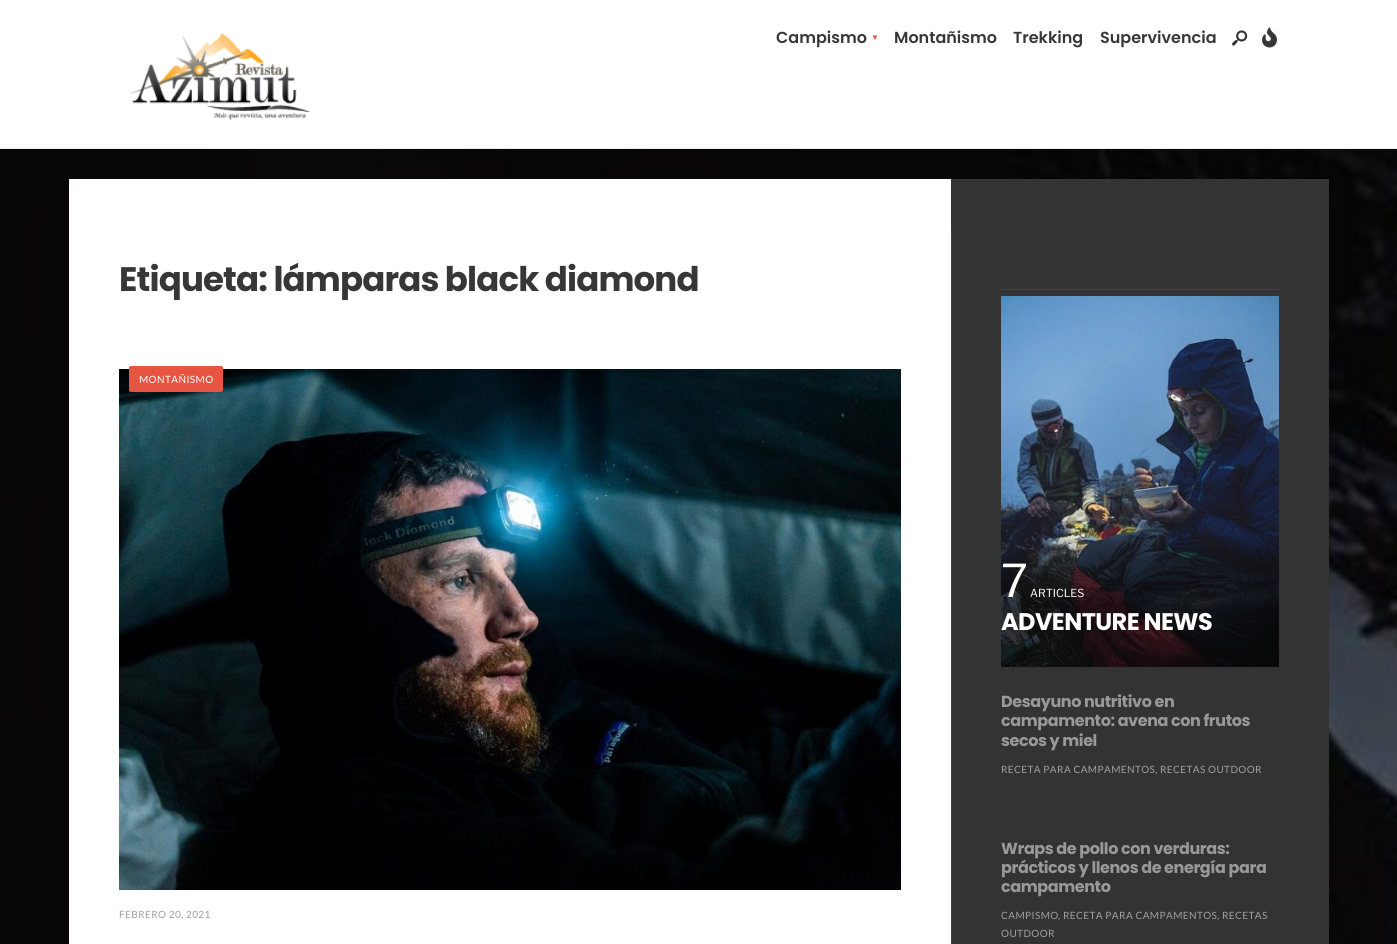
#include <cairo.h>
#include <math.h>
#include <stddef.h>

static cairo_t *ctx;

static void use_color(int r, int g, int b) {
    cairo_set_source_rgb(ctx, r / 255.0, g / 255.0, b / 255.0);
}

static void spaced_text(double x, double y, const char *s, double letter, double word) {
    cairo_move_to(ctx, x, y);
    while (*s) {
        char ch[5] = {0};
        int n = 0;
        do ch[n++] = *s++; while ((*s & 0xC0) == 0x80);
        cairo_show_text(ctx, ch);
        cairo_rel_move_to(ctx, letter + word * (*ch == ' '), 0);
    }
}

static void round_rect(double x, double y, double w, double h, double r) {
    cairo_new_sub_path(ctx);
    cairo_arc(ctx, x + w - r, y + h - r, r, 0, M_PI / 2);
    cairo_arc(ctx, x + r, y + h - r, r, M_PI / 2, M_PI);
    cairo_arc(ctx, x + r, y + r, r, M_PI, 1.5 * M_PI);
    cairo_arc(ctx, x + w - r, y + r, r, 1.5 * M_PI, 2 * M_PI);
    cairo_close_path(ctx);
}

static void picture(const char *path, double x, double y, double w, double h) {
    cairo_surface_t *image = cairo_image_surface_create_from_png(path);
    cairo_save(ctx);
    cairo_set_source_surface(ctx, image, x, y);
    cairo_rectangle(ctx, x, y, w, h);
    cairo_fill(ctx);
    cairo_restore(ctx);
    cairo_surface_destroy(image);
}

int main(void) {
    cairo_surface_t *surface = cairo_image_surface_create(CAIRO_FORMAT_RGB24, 1397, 944);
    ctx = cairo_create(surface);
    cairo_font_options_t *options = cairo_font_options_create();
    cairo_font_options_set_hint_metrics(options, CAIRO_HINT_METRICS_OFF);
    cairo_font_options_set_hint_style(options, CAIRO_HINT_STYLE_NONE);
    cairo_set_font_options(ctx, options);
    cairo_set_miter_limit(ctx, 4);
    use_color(255, 255, 255);
    cairo_paint(ctx);
    picture("img1.png", 0, 149, 1397, 795);
    use_color(239, 239, 239);
    cairo_rectangle(ctx, 0, 148, 1397, 1);
    cairo_fill(ctx);
    picture("img2.png", 131, 33, 179, 87);
    cairo_select_font_face(ctx, "Poppins SemiBold", CAIRO_FONT_SLANT_NORMAL, CAIRO_FONT_WEIGHT_NORMAL);
    cairo_set_font_size(ctx, 16);
    use_color(55, 55, 55);
    cairo_move_to(ctx, 776, 43);
    cairo_show_text(ctx, "Campismo");
    cairo_select_font_face(ctx, "Liberation Sans", CAIRO_FONT_SLANT_NORMAL, CAIRO_FONT_WEIGHT_NORMAL);
    cairo_set_font_size(ctx, 8);
    use_color(232, 84, 66);
    cairo_move_to(ctx, 871, 40);
    cairo_show_text(ctx, "▼");
    cairo_select_font_face(ctx, "Poppins SemiBold", CAIRO_FONT_SLANT_NORMAL, CAIRO_FONT_WEIGHT_NORMAL);
    cairo_set_font_size(ctx, 16);
    use_color(55, 55, 55);
    cairo_move_to(ctx, 894, 43);
    cairo_show_text(ctx, "Montañismo");
    cairo_move_to(ctx, 1013, 43);
    cairo_show_text(ctx, "Trekking");
    cairo_move_to(ctx, 1100, 43);
    cairo_show_text(ctx, "Supervivencia");
    picture("img3.png", 1232, 30, 16, 16);
    picture("img4.png", 1262, 27, 15, 21);
    use_color(255, 255, 255);
    cairo_rectangle(ctx, 69, 179, 882, 765);
    cairo_fill(ctx);
    cairo_select_font_face(ctx, "Poppins", CAIRO_FONT_SLANT_NORMAL, CAIRO_FONT_WEIGHT_BOLD);
    cairo_set_font_size(ctx, 34);
    use_color(55, 55, 55);
    spaced_text(119, 291, "Etiqueta: lámparas black diamond", -0.85, 0);
    picture("img5.png", 119, 369, 782, 521);
    use_color(232, 84, 66);
    round_rect(129, 366, 94, 26, 2);
    cairo_fill(ctx);
    cairo_select_font_face(ctx, "Lato", CAIRO_FONT_SLANT_NORMAL, CAIRO_FONT_WEIGHT_NORMAL);
    cairo_set_font_size(ctx, 10);
    use_color(255, 255, 255);
    spaced_text(139, 383, "MONTAÑISMO", 0.4, 0);
    use_color(160, 160, 160);
    spaced_text(119, 918, "FEBRERO 20, 2021", 0.4, 0);
    use_color(51, 51, 51);
    cairo_rectangle(ctx, 951, 179, 378, 765);
    cairo_fill(ctx);
    use_color(68, 68, 68);
    cairo_rectangle(ctx, 951, 229, 1, 715);
    cairo_fill(ctx);
    cairo_rectangle(ctx, 1001, 289, 278, 1);
    cairo_fill(ctx);
    picture("img6.png", 1001, 296, 278, 371);
    cairo_select_font_face(ctx, "Libre Franklin", CAIRO_FONT_SLANT_NORMAL, CAIRO_FONT_WEIGHT_NORMAL);
    cairo_set_font_size(ctx, 45);
    use_color(255, 255, 255);
    cairo_move_to(ctx, 1001, 597);
    cairo_show_text(ctx, "7");
    cairo_set_font_size(ctx, 11);
    cairo_move_to(ctx, 1030, 597);
    cairo_show_text(ctx, "ARTICLES");
    cairo_select_font_face(ctx, "Poppins", CAIRO_FONT_SLANT_NORMAL, CAIRO_FONT_WEIGHT_BOLD);
    cairo_set_font_size(ctx, 24);
    spaced_text(1001, 630, "ADVENTURE NEWS", -0.6, 0);
    cairo_set_font_size(ctx, 16);
    use_color(153, 153, 153);
    spaced_text(1001, 707, "Desayuno nutritivo en", -0.4, 0);
    spaced_text(1001, 726, "campamento: avena con frutos", -0.4, 0);
    spaced_text(1001, 746, "secos y miel", -0.4, 0);
    cairo_select_font_face(ctx, "Lato", CAIRO_FONT_SLANT_NORMAL, CAIRO_FONT_WEIGHT_NORMAL);
    cairo_set_font_size(ctx, 10);
    use_color(160, 160, 160);
    spaced_text(1001, 773, "RECETA PARA CAMPAMENTOS", 0.4, 0);
    use_color(170, 170, 170);
    spaced_text(1155, 773, ",", 0.4, 0);
    use_color(160, 160, 160);
    spaced_text(1160, 773, "RECETAS OUTDOOR", 0.4, 0);
    cairo_select_font_face(ctx, "Poppins", CAIRO_FONT_SLANT_NORMAL, CAIRO_FONT_WEIGHT_BOLD);
    cairo_set_font_size(ctx, 16);
    use_color(153, 153, 153);
    spaced_text(1001, 854, "Wraps de pollo con verduras:", -0.4, 0);
    spaced_text(1001, 873, "prácticos y llenos de energía para", -0.4, 0);
    spaced_text(1001, 892, "campamento", -0.4, 0);
    cairo_select_font_face(ctx, "Lato", CAIRO_FONT_SLANT_NORMAL, CAIRO_FONT_WEIGHT_NORMAL);
    cairo_set_font_size(ctx, 10);
    use_color(160, 160, 160);
    spaced_text(1001, 919, "CAMPISMO", 0.4, 0);
    use_color(170, 170, 170);
    spaced_text(1058, 919, ",", 0.4, 0);
    use_color(160, 160, 160);
    spaced_text(1063, 919, "RECETA PARA CAMPAMENTOS", 0.4, 0);
    use_color(170, 170, 170);
    spaced_text(1217, 919, ",", 0.4, 0);
    use_color(160, 160, 160);
    spaced_text(1222, 919, "RECETAS", 0.4, 0);
    spaced_text(1001, 937, "OUTDOOR", 0.4, 0);
    cairo_surface_write_to_png(surface, "result.png");
    cairo_font_options_destroy(options);
    cairo_destroy(ctx);
    cairo_surface_destroy(surface);
    return 0;
}
